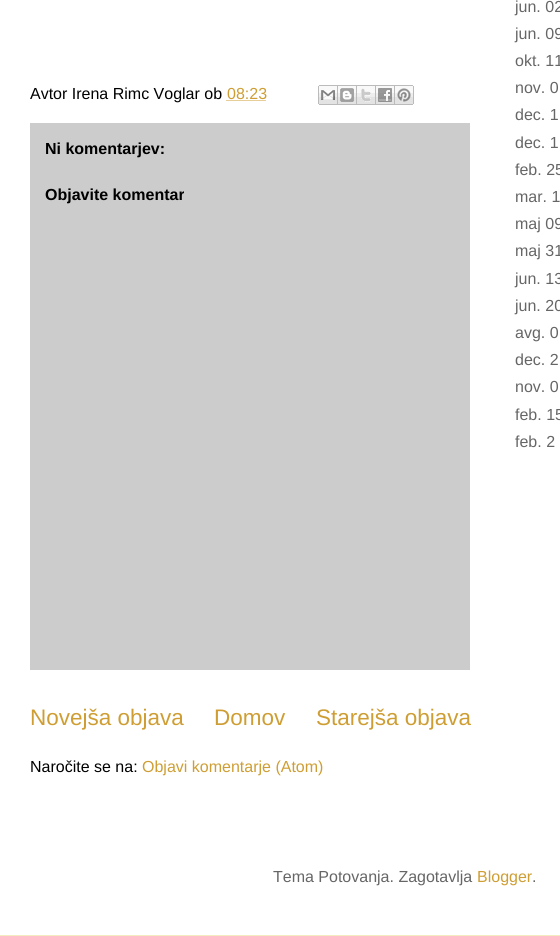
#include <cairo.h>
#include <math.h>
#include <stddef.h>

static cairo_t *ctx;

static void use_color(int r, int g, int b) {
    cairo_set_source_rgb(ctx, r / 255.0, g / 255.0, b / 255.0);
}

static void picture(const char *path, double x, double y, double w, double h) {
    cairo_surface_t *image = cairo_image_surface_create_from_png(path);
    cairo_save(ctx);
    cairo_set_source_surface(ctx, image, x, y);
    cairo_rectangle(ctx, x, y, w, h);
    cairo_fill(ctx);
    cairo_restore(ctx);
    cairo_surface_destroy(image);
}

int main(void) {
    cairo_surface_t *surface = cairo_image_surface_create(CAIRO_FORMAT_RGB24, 560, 936);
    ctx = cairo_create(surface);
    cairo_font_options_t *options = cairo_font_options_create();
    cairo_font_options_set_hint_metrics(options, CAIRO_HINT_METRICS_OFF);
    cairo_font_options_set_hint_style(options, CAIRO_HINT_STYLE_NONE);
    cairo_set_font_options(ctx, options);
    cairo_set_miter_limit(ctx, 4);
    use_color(243, 236, 194);
    cairo_paint(ctx);
    use_color(255, 255, 255);
    cairo_rectangle(ctx, 0, 0, 560, 935);
    cairo_fill(ctx);
    cairo_select_font_face(ctx, "Liberation Sans", CAIRO_FONT_SLANT_NORMAL, CAIRO_FONT_WEIGHT_NORMAL);
    cairo_set_font_size(ctx, 16);
    use_color(0, 0, 0);
    cairo_move_to(ctx, 30, 99);
    cairo_show_text(ctx, "Avtor Irena Rimc Voglar ob");
    use_color(206, 158, 52);
    cairo_move_to(ctx, 227, 99);
    cairo_show_text(ctx, "08:23");
    cairo_new_path(ctx);
    cairo_move_to(ctx, 226.5, 100.5);
    cairo_line_to(ctx, 266.5, 100.5);
    cairo_set_line_width(ctx, 1);
    cairo_set_dash(ctx, (double[]){1, 1}, 2, 0);
    cairo_stroke(ctx);
    picture("img1.png", 318, 85, 20, 20);
    picture("img2.png", 338, 85, 19, 20);
    picture("img3.png", 357, 85, 19, 20);
    picture("img4.png", 376, 85, 19, 20);
    picture("img5.png", 395, 85, 19, 20);
    use_color(204, 204, 204);
    cairo_rectangle(ctx, 30, 123, 440, 547);
    cairo_fill(ctx);
    cairo_select_font_face(ctx, "Liberation Sans", CAIRO_FONT_SLANT_NORMAL, CAIRO_FONT_WEIGHT_BOLD);
    use_color(0, 0, 0);
    cairo_move_to(ctx, 45, 154);
    cairo_show_text(ctx, "Ni komentarjev:");
    cairo_move_to(ctx, 45, 200);
    cairo_show_text(ctx, "Objavite komentar");
    cairo_select_font_face(ctx, "Liberation Sans", CAIRO_FONT_SLANT_NORMAL, CAIRO_FONT_WEIGHT_NORMAL);
    cairo_set_font_size(ctx, 22.5);
    use_color(206, 158, 52);
    cairo_move_to(ctx, 30, 725);
    cairo_show_text(ctx, "Novejša objava");
    cairo_move_to(ctx, 214, 725);
    cairo_show_text(ctx, "Domov");
    cairo_move_to(ctx, 316, 725);
    cairo_show_text(ctx, "Starejša objava");
    cairo_set_font_size(ctx, 16);
    use_color(0, 0, 0);
    cairo_move_to(ctx, 30, 772);
    cairo_show_text(ctx, "Naročite se na:");
    use_color(206, 158, 52);
    cairo_move_to(ctx, 142, 772);
    cairo_show_text(ctx, "Objavi komentarje (Atom)");
    use_color(102, 102, 102);
    cairo_move_to(ctx, 515, 12);
    cairo_show_text(ctx, "jun. 02");
    cairo_move_to(ctx, 515, 39);
    cairo_show_text(ctx, "jun. 09");
    cairo_move_to(ctx, 515, 66);
    cairo_show_text(ctx, "okt. 11");
    cairo_move_to(ctx, 515, 93);
    cairo_show_text(ctx, "nov. 0");
    cairo_move_to(ctx, 515, 120);
    cairo_show_text(ctx, "dec. 1");
    cairo_move_to(ctx, 515, 148);
    cairo_show_text(ctx, "dec. 1");
    cairo_move_to(ctx, 515, 175);
    cairo_show_text(ctx, "feb. 25");
    cairo_move_to(ctx, 515, 202);
    cairo_show_text(ctx, "mar. 1");
    cairo_move_to(ctx, 515, 229);
    cairo_show_text(ctx, "maj 09");
    cairo_move_to(ctx, 515, 256);
    cairo_show_text(ctx, "maj 31");
    cairo_move_to(ctx, 515, 284);
    cairo_show_text(ctx, "jun. 13");
    cairo_move_to(ctx, 515, 311);
    cairo_show_text(ctx, "jun. 20");
    cairo_move_to(ctx, 515, 338);
    cairo_show_text(ctx, "avg. 0");
    cairo_move_to(ctx, 515, 365);
    cairo_show_text(ctx, "dec. 2");
    cairo_move_to(ctx, 515, 392);
    cairo_show_text(ctx, "nov. 0");
    cairo_move_to(ctx, 515, 420);
    cairo_show_text(ctx, "feb. 15");
    cairo_move_to(ctx, 515, 447);
    cairo_show_text(ctx, "feb. 2");
    cairo_move_to(ctx, 273, 882);
    cairo_show_text(ctx, "Tema Potovanja. Zagotavlja");
    use_color(206, 158, 52);
    cairo_move_to(ctx, 477, 882);
    cairo_show_text(ctx, "Blogger");
    use_color(102, 102, 102);
    cairo_move_to(ctx, 532, 882);
    cairo_show_text(ctx, ".");
    cairo_surface_write_to_png(surface, "result.png");
    cairo_font_options_destroy(options);
    cairo_destroy(ctx);
    cairo_surface_destroy(surface);
    return 0;
}
